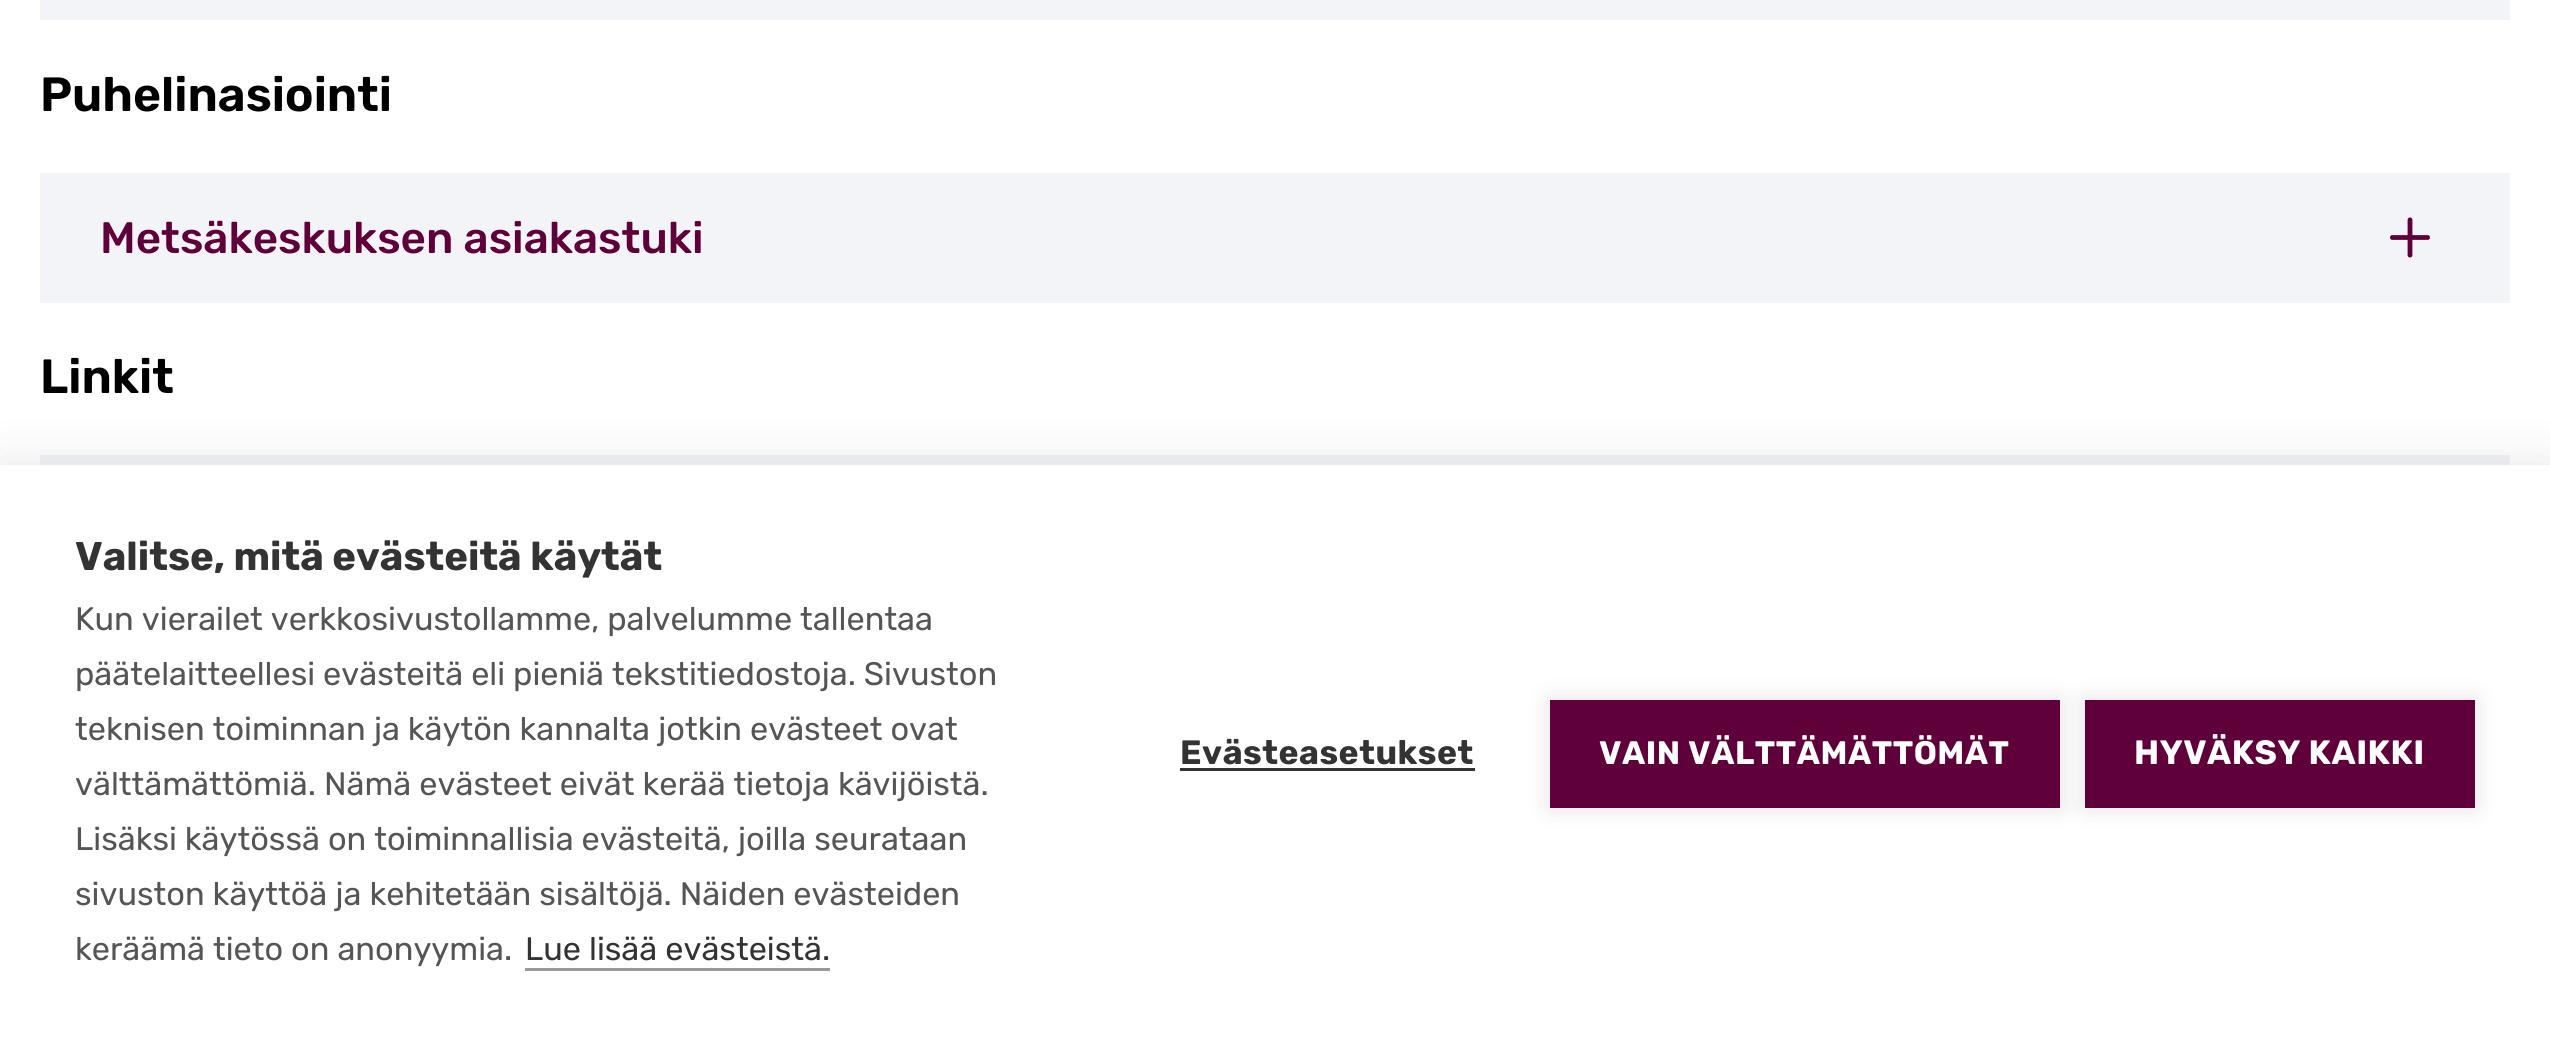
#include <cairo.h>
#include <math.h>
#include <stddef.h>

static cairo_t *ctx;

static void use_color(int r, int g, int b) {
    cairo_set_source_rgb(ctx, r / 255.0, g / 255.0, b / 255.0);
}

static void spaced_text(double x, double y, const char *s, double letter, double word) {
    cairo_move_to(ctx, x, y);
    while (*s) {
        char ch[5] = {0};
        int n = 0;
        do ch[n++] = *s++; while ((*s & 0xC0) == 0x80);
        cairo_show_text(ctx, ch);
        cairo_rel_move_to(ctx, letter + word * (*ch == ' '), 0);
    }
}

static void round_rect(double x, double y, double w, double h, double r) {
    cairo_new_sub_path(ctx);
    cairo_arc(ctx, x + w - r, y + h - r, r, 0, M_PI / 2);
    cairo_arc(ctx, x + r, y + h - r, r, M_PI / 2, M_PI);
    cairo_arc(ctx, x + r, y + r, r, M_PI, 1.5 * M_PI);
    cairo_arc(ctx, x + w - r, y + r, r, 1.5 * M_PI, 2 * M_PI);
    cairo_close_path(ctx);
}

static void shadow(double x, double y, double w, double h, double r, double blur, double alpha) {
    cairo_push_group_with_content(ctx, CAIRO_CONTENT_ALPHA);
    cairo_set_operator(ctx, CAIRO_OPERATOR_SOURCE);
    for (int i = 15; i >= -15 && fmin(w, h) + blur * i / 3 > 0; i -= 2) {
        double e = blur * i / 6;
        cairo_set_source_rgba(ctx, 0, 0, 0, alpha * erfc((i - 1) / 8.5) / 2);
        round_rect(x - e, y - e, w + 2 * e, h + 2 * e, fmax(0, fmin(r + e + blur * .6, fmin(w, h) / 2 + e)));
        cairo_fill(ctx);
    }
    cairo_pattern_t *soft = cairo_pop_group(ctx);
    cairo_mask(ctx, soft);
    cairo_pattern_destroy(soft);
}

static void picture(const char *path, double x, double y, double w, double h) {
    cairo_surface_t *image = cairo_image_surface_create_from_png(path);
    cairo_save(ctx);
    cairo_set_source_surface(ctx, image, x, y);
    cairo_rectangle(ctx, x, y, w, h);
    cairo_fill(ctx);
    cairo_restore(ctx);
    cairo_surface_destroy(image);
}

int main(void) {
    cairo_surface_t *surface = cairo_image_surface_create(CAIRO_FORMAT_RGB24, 2550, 1040);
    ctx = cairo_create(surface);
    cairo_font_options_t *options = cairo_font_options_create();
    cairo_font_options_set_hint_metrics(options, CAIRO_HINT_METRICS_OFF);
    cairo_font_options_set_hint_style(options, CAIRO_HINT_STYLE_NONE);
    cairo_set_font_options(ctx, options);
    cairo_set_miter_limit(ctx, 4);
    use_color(255, 255, 255);
    cairo_paint(ctx);
    use_color(243, 244, 248);
    cairo_rectangle(ctx, 40, 0, 2470, 20);
    cairo_fill(ctx);
    cairo_select_font_face(ctx, "Rubik SemiBold", CAIRO_FONT_SLANT_NORMAL, CAIRO_FONT_WEIGHT_NORMAL);
    cairo_set_font_size(ctx, 48);
    use_color(0, 0, 0);
    cairo_move_to(ctx, 40, 111);
    cairo_show_text(ctx, "Puhelinasiointi");
    use_color(243, 244, 248);
    cairo_rectangle(ctx, 40, 173, 2470, 130);
    cairo_fill(ctx);
    cairo_select_font_face(ctx, "Rubik Medium", CAIRO_FONT_SLANT_NORMAL, CAIRO_FONT_WEIGHT_NORMAL);
    cairo_set_font_size(ctx, 44);
    use_color(95, 0, 58);
    cairo_move_to(ctx, 100, 253);
    cairo_show_text(ctx, "Metsäkeskuksen asiakastuki");
    picture("img1.png", 2390, 217, 40, 41);
    cairo_select_font_face(ctx, "Rubik SemiBold", CAIRO_FONT_SLANT_NORMAL, CAIRO_FONT_WEIGHT_NORMAL);
    cairo_set_font_size(ctx, 48);
    use_color(0, 0, 0);
    cairo_move_to(ctx, 40, 393);
    cairo_show_text(ctx, "Linkit");
    use_color(243, 244, 248);
    cairo_rectangle(ctx, 40, 455, 2470, 10);
    cairo_fill(ctx);
    use_color(0, 0, 0);
    shadow(0, 465, 2550, 575, 0, 25, 0.1);
    use_color(255, 255, 255);
    cairo_rectangle(ctx, 0, 465, 2550, 575);
    cairo_fill(ctx);
    cairo_select_font_face(ctx, "Rubik", CAIRO_FONT_SLANT_NORMAL, CAIRO_FONT_WEIGHT_BOLD);
    cairo_set_font_size(ctx, 40);
    use_color(51, 51, 51);
    cairo_move_to(ctx, 75, 570);
    cairo_show_text(ctx, "Valitse, mitä evästeitä käytät");
    cairo_select_font_face(ctx, "Rubik", CAIRO_FONT_SLANT_NORMAL, CAIRO_FONT_WEIGHT_NORMAL);
    cairo_set_font_size(ctx, 32.5);
    use_color(85, 85, 85);
    cairo_move_to(ctx, 75, 630);
    cairo_show_text(ctx, "Kun vierailet verkkosivustollamme, palvelumme tallentaa");
    cairo_move_to(ctx, 75, 685);
    cairo_show_text(ctx, "päätelaitteellesi evästeitä eli pieniä tekstitiedostoja. Sivuston");
    cairo_move_to(ctx, 75, 740);
    cairo_show_text(ctx, "teknisen toiminnan ja käytön kannalta jotkin evästeet ovat");
    cairo_move_to(ctx, 75, 795);
    cairo_show_text(ctx, "välttämättömiä. Nämä evästeet eivät kerää tietoja kävijöistä.");
    cairo_move_to(ctx, 75, 850);
    cairo_show_text(ctx, "Lisäksi käytössä on toiminnallisia evästeitä, joilla seurataan");
    cairo_move_to(ctx, 75, 905);
    cairo_show_text(ctx, "sivuston käyttöä ja kehitetään sisältöjä. Näiden evästeiden");
    cairo_move_to(ctx, 75, 960);
    cairo_show_text(ctx, "keräämä tieto on anonyymia.");
    use_color(51, 51, 51);
    cairo_move_to(ctx, 525, 960);
    cairo_show_text(ctx, "Lue lisää evästeistä.");
    use_color(153, 153, 153);
    cairo_rectangle(ctx, 525, 968, 305, 3);
    cairo_fill(ctx);
    cairo_select_font_face(ctx, "Rubik", CAIRO_FONT_SLANT_NORMAL, CAIRO_FONT_WEIGHT_BOLD);
    cairo_set_font_size(ctx, 33.75);
    use_color(51, 51, 51);
    spaced_text(1180, 764, "Evästeasetukset", 0.5, 0);
    cairo_rectangle(ctx, 1180, 768, 295, 3);
    cairo_fill(ctx);
    use_color(0, 0, 0);
    shadow(1550, 700, 510, 108, 0, 12.5, 0.12);
    use_color(95, 0, 58);
    cairo_rectangle(ctx, 1550, 700, 510, 108);
    cairo_fill(ctx);
    cairo_set_font_size(ctx, 32.5);
    use_color(255, 255, 255);
    spaced_text(1599, 764, "VAIN VÄLTTÄMÄTTÖMÄT", 0.5, 0);
    use_color(0, 0, 0);
    shadow(2085, 700, 390, 108, 0, 12.5, 0.12);
    use_color(95, 0, 58);
    cairo_rectangle(ctx, 2085, 700, 390, 108);
    cairo_fill(ctx);
    cairo_set_font_size(ctx, 33.75);
    use_color(255, 255, 255);
    spaced_text(2134, 764, "HYVÄKSY KAIKKI", 0.5, 0);
    cairo_surface_write_to_png(surface, "result.png");
    cairo_font_options_destroy(options);
    cairo_destroy(ctx);
    cairo_surface_destroy(surface);
    return 0;
}
